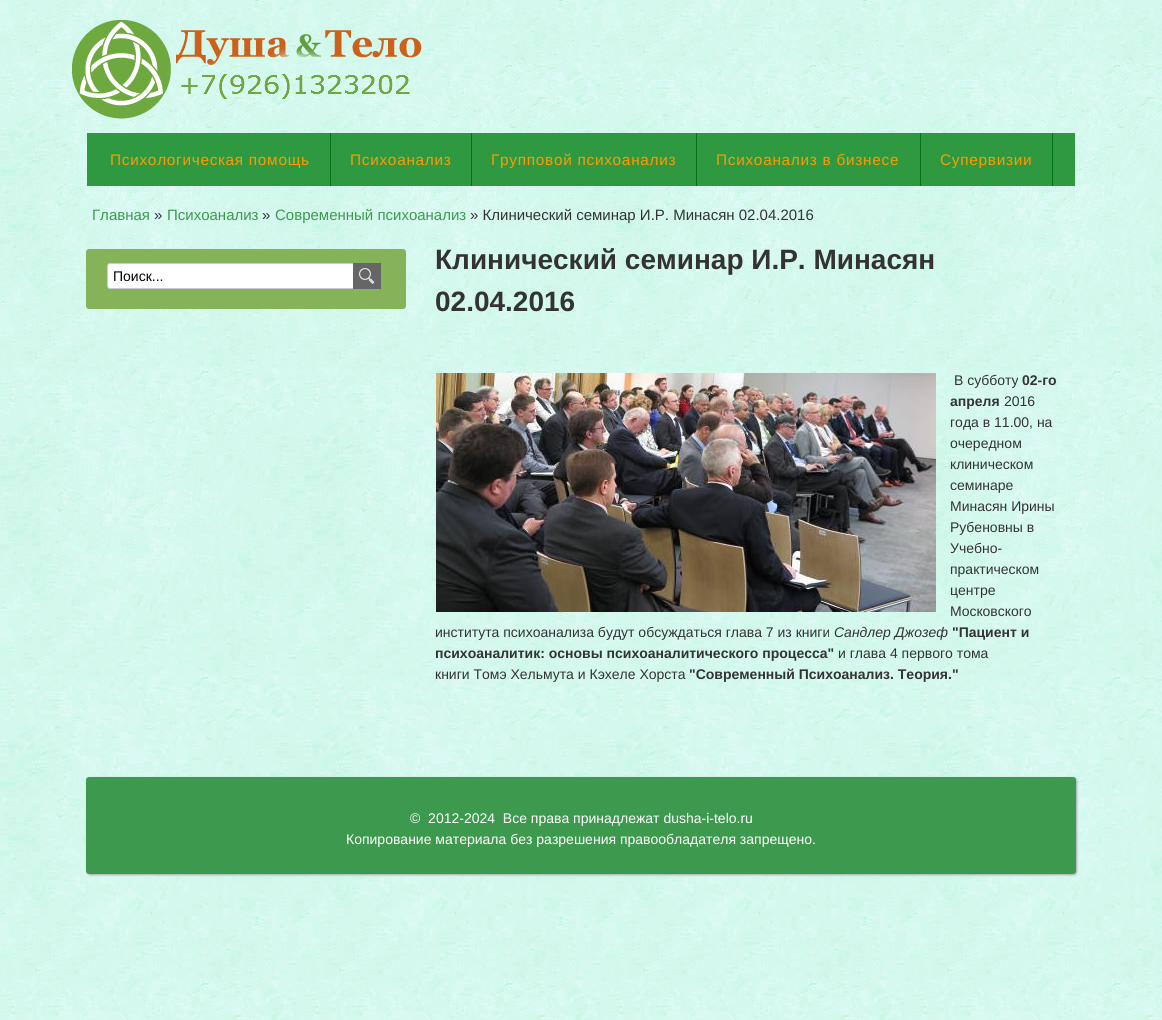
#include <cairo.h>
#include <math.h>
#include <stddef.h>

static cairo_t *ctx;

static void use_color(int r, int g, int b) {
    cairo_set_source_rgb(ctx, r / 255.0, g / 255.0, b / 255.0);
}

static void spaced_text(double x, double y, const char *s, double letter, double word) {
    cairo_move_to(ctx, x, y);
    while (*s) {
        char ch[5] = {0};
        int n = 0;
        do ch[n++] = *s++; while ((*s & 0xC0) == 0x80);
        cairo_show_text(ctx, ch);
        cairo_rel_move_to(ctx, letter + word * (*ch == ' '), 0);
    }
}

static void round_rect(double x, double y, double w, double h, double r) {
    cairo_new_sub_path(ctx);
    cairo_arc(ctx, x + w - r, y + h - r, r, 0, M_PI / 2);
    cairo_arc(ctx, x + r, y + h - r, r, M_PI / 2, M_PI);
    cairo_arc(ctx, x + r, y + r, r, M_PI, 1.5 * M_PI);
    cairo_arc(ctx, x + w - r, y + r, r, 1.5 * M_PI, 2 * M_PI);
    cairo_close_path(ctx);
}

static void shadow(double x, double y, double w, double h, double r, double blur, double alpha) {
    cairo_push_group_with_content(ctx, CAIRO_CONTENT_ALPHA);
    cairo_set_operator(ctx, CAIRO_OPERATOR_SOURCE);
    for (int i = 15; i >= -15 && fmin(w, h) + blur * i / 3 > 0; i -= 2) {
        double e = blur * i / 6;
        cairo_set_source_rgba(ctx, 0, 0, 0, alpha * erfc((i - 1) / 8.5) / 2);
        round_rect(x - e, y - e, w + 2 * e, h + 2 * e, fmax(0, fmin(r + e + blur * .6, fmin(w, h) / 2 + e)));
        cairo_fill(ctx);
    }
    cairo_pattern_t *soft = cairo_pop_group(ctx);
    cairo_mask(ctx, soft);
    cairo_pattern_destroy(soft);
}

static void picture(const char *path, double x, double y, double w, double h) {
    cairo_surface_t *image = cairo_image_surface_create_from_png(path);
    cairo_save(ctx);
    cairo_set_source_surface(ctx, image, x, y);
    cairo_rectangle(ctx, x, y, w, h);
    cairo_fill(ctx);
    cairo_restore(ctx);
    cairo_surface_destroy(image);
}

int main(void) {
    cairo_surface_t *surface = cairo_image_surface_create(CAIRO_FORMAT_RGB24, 1162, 1020);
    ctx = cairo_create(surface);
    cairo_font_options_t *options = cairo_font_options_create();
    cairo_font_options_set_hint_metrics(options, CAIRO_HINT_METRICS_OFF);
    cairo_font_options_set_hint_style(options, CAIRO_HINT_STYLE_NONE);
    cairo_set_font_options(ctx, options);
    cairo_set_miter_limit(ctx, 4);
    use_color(255, 255, 255);
    cairo_paint(ctx);
    picture("img1.png", 0, 0, 1162, 1020);
    picture("img2.png", 72, 20, 350, 99);
    use_color(46, 153, 64);
    cairo_rectangle(ctx, 87, 133, 988, 53);
    cairo_fill(ctx);
    use_color(0, 115, 19);
    cairo_rectangle(ctx, 330, 133, 1, 53);
    cairo_fill(ctx);
    cairo_select_font_face(ctx, "Liberation Sans", CAIRO_FONT_SLANT_NORMAL, CAIRO_FONT_WEIGHT_NORMAL);
    cairo_set_font_size(ctx, 15.4);
    use_color(255, 153, 0);
    spaced_text(110, 165, "Психологическая помощь", 0.7, 0);
    use_color(0, 115, 19);
    cairo_rectangle(ctx, 471, 133, 1, 53);
    cairo_fill(ctx);
    use_color(255, 153, 0);
    spaced_text(350, 165, "Психоанализ", 0.7, 0);
    use_color(0, 115, 19);
    cairo_rectangle(ctx, 696, 133, 1, 53);
    cairo_fill(ctx);
    use_color(255, 153, 0);
    spaced_text(491, 165, "Групповой психоанализ", 0.7, 0);
    use_color(0, 115, 19);
    cairo_rectangle(ctx, 920, 133, 1, 53);
    cairo_fill(ctx);
    use_color(255, 153, 0);
    spaced_text(716, 165, "Психоанализ в бизнесе", 0.7, 0);
    use_color(0, 115, 19);
    cairo_rectangle(ctx, 1052, 133, 1, 53);
    cairo_fill(ctx);
    use_color(255, 153, 0);
    spaced_text(940, 165, "Супервизии", 0.7, 0);
    cairo_set_font_size(ctx, 15);
    use_color(61, 153, 77);
    cairo_move_to(ctx, 92, 220);
    cairo_show_text(ctx, "Главная");
    use_color(51, 51, 51);
    cairo_move_to(ctx, 154, 220);
    cairo_show_text(ctx, "»");
    use_color(61, 153, 77);
    cairo_move_to(ctx, 167, 220);
    cairo_show_text(ctx, "Психоанализ");
    use_color(51, 51, 51);
    cairo_move_to(ctx, 262, 220);
    cairo_show_text(ctx, "»");
    use_color(61, 153, 77);
    cairo_move_to(ctx, 275, 220);
    cairo_show_text(ctx, "Современный психоанализ");
    use_color(51, 51, 51);
    cairo_move_to(ctx, 470, 220);
    cairo_show_text(ctx, "» Клинический семинар И.Р. Минасян 02.04.2016");
    use_color(134, 179, 89);
    round_rect(86, 249, 320, 60, 3);
    cairo_fill(ctx);
    use_color(255, 255, 255);
    round_rect(107.5, 263.5, 250, 25, 2.5);
    cairo_fill_preserve(ctx);
    use_color(204, 204, 204);
    cairo_set_line_width(ctx, 1);
    cairo_stroke(ctx);
    cairo_set_font_size(ctx, 14);
    use_color(0, 0, 0);
    cairo_move_to(ctx, 113, 281);
    cairo_show_text(ctx, "Поиск...");
    use_color(102, 102, 102);
    cairo_rectangle(ctx, 353, 263, 28, 26);
    cairo_fill(ctx);
    picture("img3.png", 359, 268, 16, 16);
    cairo_select_font_face(ctx, "Liberation Sans", CAIRO_FONT_SLANT_NORMAL, CAIRO_FONT_WEIGHT_BOLD);
    cairo_set_font_size(ctx, 28);
    use_color(51, 51, 51);
    cairo_move_to(ctx, 435, 269);
    cairo_show_text(ctx, "Клинический семинар И.Р. Минасян");
    cairo_move_to(ctx, 435, 311);
    cairo_show_text(ctx, "02.04.2016");
    picture("img4.png", 436, 373, 500, 239);
    cairo_select_font_face(ctx, "Liberation Sans", CAIRO_FONT_SLANT_NORMAL, CAIRO_FONT_WEIGHT_NORMAL);
    cairo_set_font_size(ctx, 14);
    cairo_move_to(ctx, 954, 385);
    cairo_show_text(ctx, "В субботу");
    cairo_select_font_face(ctx, "Liberation Sans", CAIRO_FONT_SLANT_NORMAL, CAIRO_FONT_WEIGHT_BOLD);
    cairo_move_to(ctx, 1022, 385);
    cairo_show_text(ctx, "02-го");
    cairo_move_to(ctx, 950, 406);
    cairo_show_text(ctx, "апреля");
    cairo_select_font_face(ctx, "Liberation Sans", CAIRO_FONT_SLANT_NORMAL, CAIRO_FONT_WEIGHT_NORMAL);
    cairo_move_to(ctx, 1004, 406);
    cairo_show_text(ctx, "2016");
    cairo_move_to(ctx, 950, 427);
    cairo_show_text(ctx, "года в 11.00, на");
    cairo_move_to(ctx, 950, 448);
    cairo_show_text(ctx, "очередном");
    cairo_move_to(ctx, 950, 469);
    cairo_show_text(ctx, "клиническом");
    cairo_move_to(ctx, 950, 490);
    cairo_show_text(ctx, "семинаре");
    cairo_move_to(ctx, 950, 511);
    cairo_show_text(ctx, "Минасян Ирины");
    cairo_move_to(ctx, 950, 532);
    cairo_show_text(ctx, "Рубеновны в");
    cairo_move_to(ctx, 950, 553);
    cairo_show_text(ctx, "Учебно-");
    cairo_move_to(ctx, 950, 574);
    cairo_show_text(ctx, "практическом");
    cairo_move_to(ctx, 950, 595);
    cairo_show_text(ctx, "центре");
    cairo_move_to(ctx, 950, 616);
    cairo_show_text(ctx, "Московского");
    cairo_move_to(ctx, 435, 637);
    cairo_show_text(ctx, "института психоанализа будут обсуждаться глава 7 из книги");
    cairo_select_font_face(ctx, "Liberation Sans", CAIRO_FONT_SLANT_ITALIC, CAIRO_FONT_WEIGHT_NORMAL);
    cairo_move_to(ctx, 834, 637);
    cairo_show_text(ctx, "Сандлер Джозеф");
    cairo_select_font_face(ctx, "Liberation Sans", CAIRO_FONT_SLANT_NORMAL, CAIRO_FONT_WEIGHT_BOLD);
    cairo_move_to(ctx, 952, 637);
    cairo_show_text(ctx, "\"Пациент и");
    cairo_move_to(ctx, 435, 658);
    cairo_show_text(ctx, "психоаналитик: основы психоаналитического процесса\"");
    cairo_select_font_face(ctx, "Liberation Sans", CAIRO_FONT_SLANT_NORMAL, CAIRO_FONT_WEIGHT_NORMAL);
    cairo_move_to(ctx, 838, 658);
    cairo_show_text(ctx, "и глава 4 первого тома");
    cairo_move_to(ctx, 435, 679);
    cairo_show_text(ctx, "книги Томэ Xельмута и Кэхеле Xорста");
    cairo_select_font_face(ctx, "Liberation Sans", CAIRO_FONT_SLANT_NORMAL, CAIRO_FONT_WEIGHT_BOLD);
    cairo_move_to(ctx, 689, 679);
    cairo_show_text(ctx, "\"Современный Психоанализ. Теория.\"");
    use_color(170, 170, 170);
    shadow(87, 778, 990, 97, 3, 1, 1);
    use_color(61, 153, 77);
    round_rect(86, 777, 990, 97, 3);
    cairo_fill(ctx);
    cairo_select_font_face(ctx, "Liberation Sans", CAIRO_FONT_SLANT_NORMAL, CAIRO_FONT_WEIGHT_NORMAL);
    use_color(255, 255, 255);
    cairo_move_to(ctx, 410, 823);
    cairo_show_text(ctx, "©  2012-2024  Все права принадлежат dusha-i-telo.ru");
    cairo_move_to(ctx, 346, 844);
    cairo_show_text(ctx, "Копирование материала без разрешения правообладателя запрещено.");
    cairo_surface_write_to_png(surface, "result.png");
    cairo_font_options_destroy(options);
    cairo_destroy(ctx);
    cairo_surface_destroy(surface);
    return 0;
}
